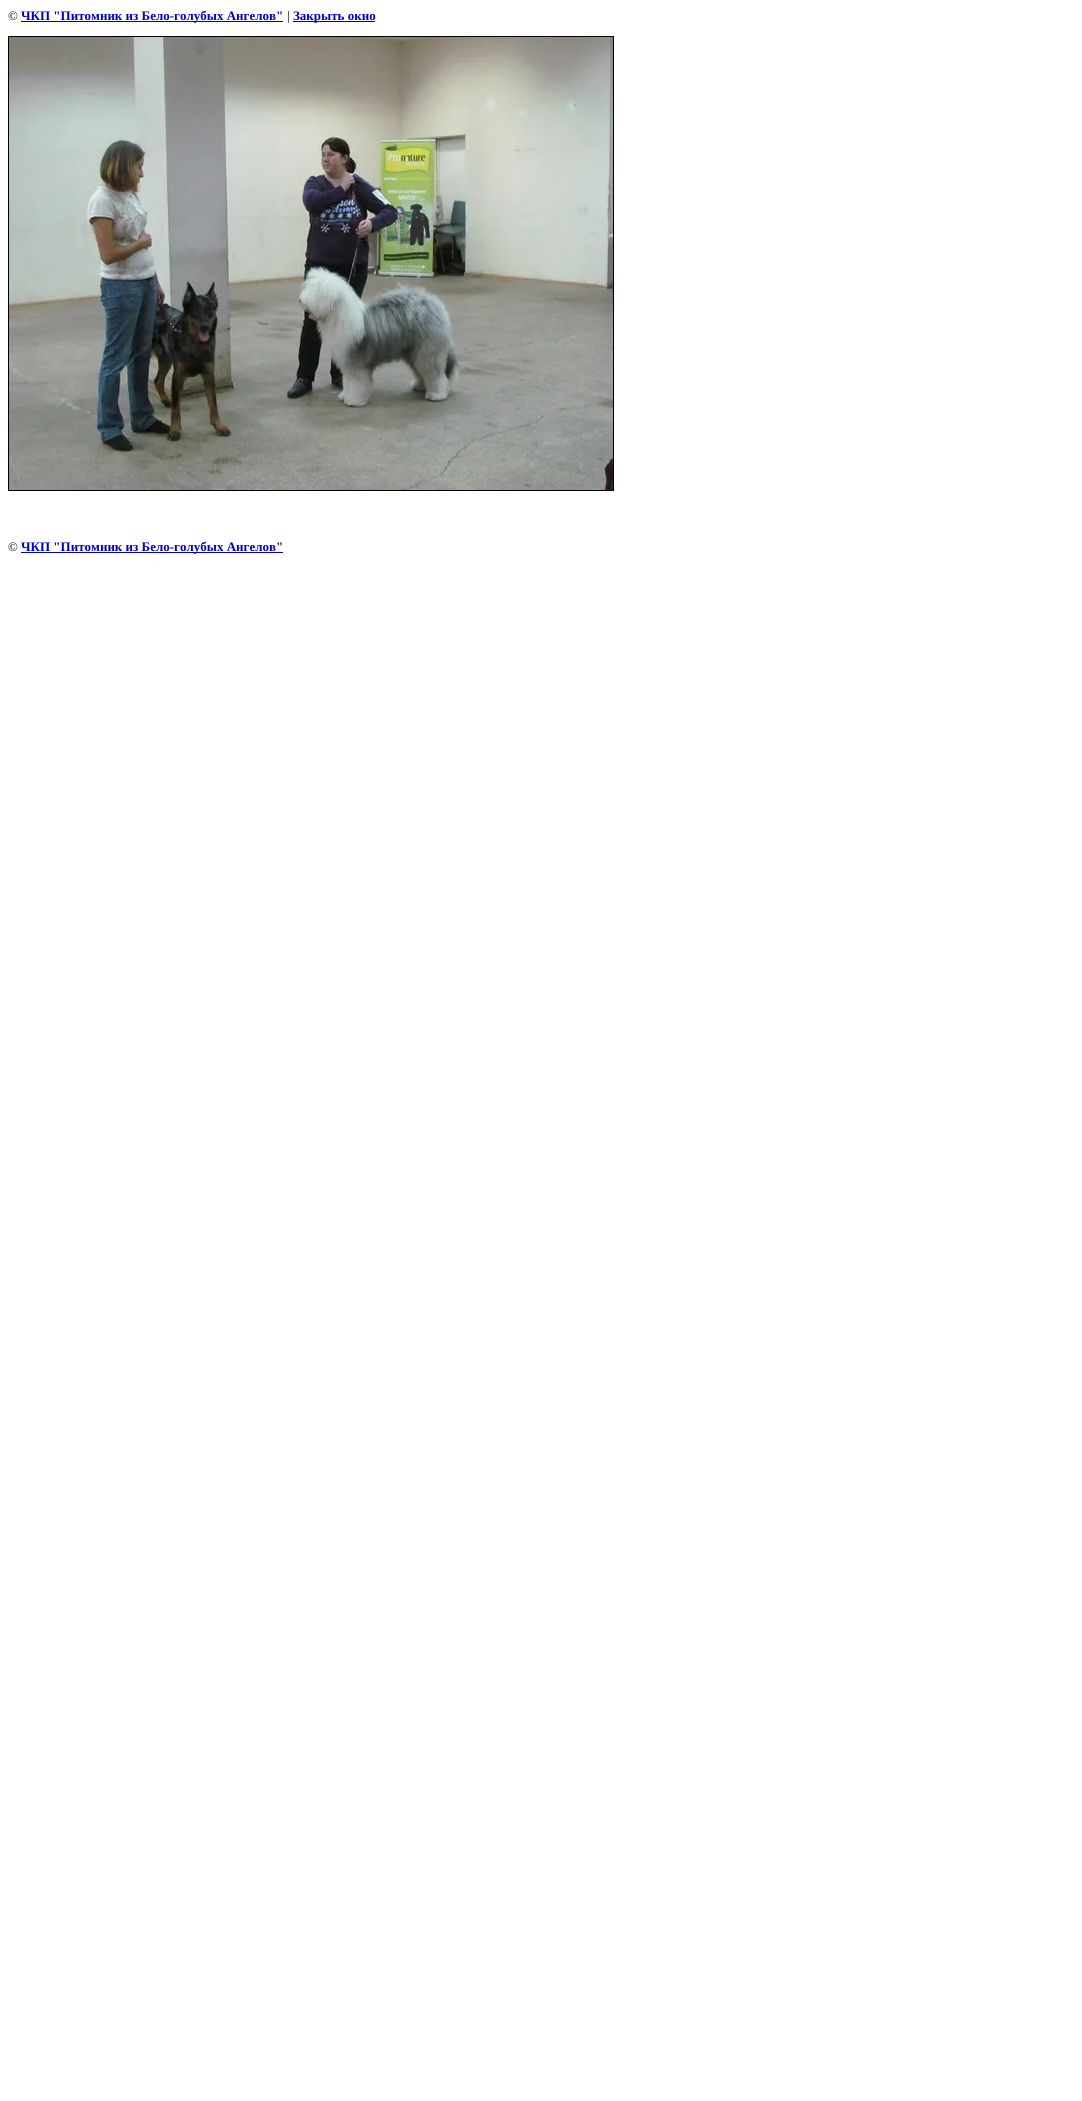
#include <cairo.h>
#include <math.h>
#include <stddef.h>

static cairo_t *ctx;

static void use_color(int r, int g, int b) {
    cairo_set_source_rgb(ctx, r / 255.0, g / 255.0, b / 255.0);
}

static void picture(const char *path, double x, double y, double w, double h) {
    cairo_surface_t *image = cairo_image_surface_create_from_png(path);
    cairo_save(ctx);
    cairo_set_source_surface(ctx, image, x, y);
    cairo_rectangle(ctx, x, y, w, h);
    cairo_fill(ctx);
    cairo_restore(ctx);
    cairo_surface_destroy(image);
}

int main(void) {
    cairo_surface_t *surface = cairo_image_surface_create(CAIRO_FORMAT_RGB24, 1082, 2101);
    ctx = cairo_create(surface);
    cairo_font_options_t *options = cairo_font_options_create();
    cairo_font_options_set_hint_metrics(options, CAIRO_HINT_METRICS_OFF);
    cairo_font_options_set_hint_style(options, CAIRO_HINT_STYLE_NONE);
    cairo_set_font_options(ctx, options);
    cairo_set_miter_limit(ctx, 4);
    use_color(255, 255, 255);
    cairo_paint(ctx);
    cairo_select_font_face(ctx, "Liberation Serif", CAIRO_FONT_SLANT_NORMAL, CAIRO_FONT_WEIGHT_NORMAL);
    cairo_set_font_size(ctx, 13);
    use_color(0, 0, 0);
    cairo_move_to(ctx, 8, 20);
    cairo_show_text(ctx, "©");
    use_color(0, 0, 204);
    cairo_rectangle(ctx, 21, 21, 262, 1);
    cairo_fill(ctx);
    cairo_select_font_face(ctx, "Liberation Serif", CAIRO_FONT_SLANT_NORMAL, CAIRO_FONT_WEIGHT_BOLD);
    cairo_move_to(ctx, 21, 20);
    cairo_show_text(ctx, "ЧКП \"Питомник из Бело-голубых Ангелов\"");
    cairo_select_font_face(ctx, "Liberation Serif", CAIRO_FONT_SLANT_NORMAL, CAIRO_FONT_WEIGHT_NORMAL);
    use_color(0, 0, 0);
    cairo_move_to(ctx, 287, 20);
    cairo_show_text(ctx, "|");
    use_color(0, 0, 204);
    cairo_rectangle(ctx, 293, 21, 82, 1);
    cairo_fill(ctx);
    cairo_select_font_face(ctx, "Liberation Serif", CAIRO_FONT_SLANT_NORMAL, CAIRO_FONT_WEIGHT_BOLD);
    cairo_move_to(ctx, 293, 20);
    cairo_show_text(ctx, "Закрыть окно");
    cairo_rectangle(ctx, 8.5, 36.5, 605, 454);
    use_color(0, 0, 0);
    cairo_set_line_width(ctx, 1);
    cairo_stroke(ctx);
    picture("img1.png", 9, 37, 604, 453);
    cairo_select_font_face(ctx, "Liberation Serif", CAIRO_FONT_SLANT_NORMAL, CAIRO_FONT_WEIGHT_NORMAL);
    cairo_move_to(ctx, 8, 551);
    cairo_show_text(ctx, "©");
    use_color(0, 0, 204);
    cairo_rectangle(ctx, 21, 552, 262, 1);
    cairo_fill(ctx);
    cairo_select_font_face(ctx, "Liberation Serif", CAIRO_FONT_SLANT_NORMAL, CAIRO_FONT_WEIGHT_BOLD);
    cairo_move_to(ctx, 21, 551);
    cairo_show_text(ctx, "ЧКП \"Питомник из Бело-голубых Ангелов\"");
    cairo_surface_write_to_png(surface, "result.png");
    cairo_font_options_destroy(options);
    cairo_destroy(ctx);
    cairo_surface_destroy(surface);
    return 0;
}
